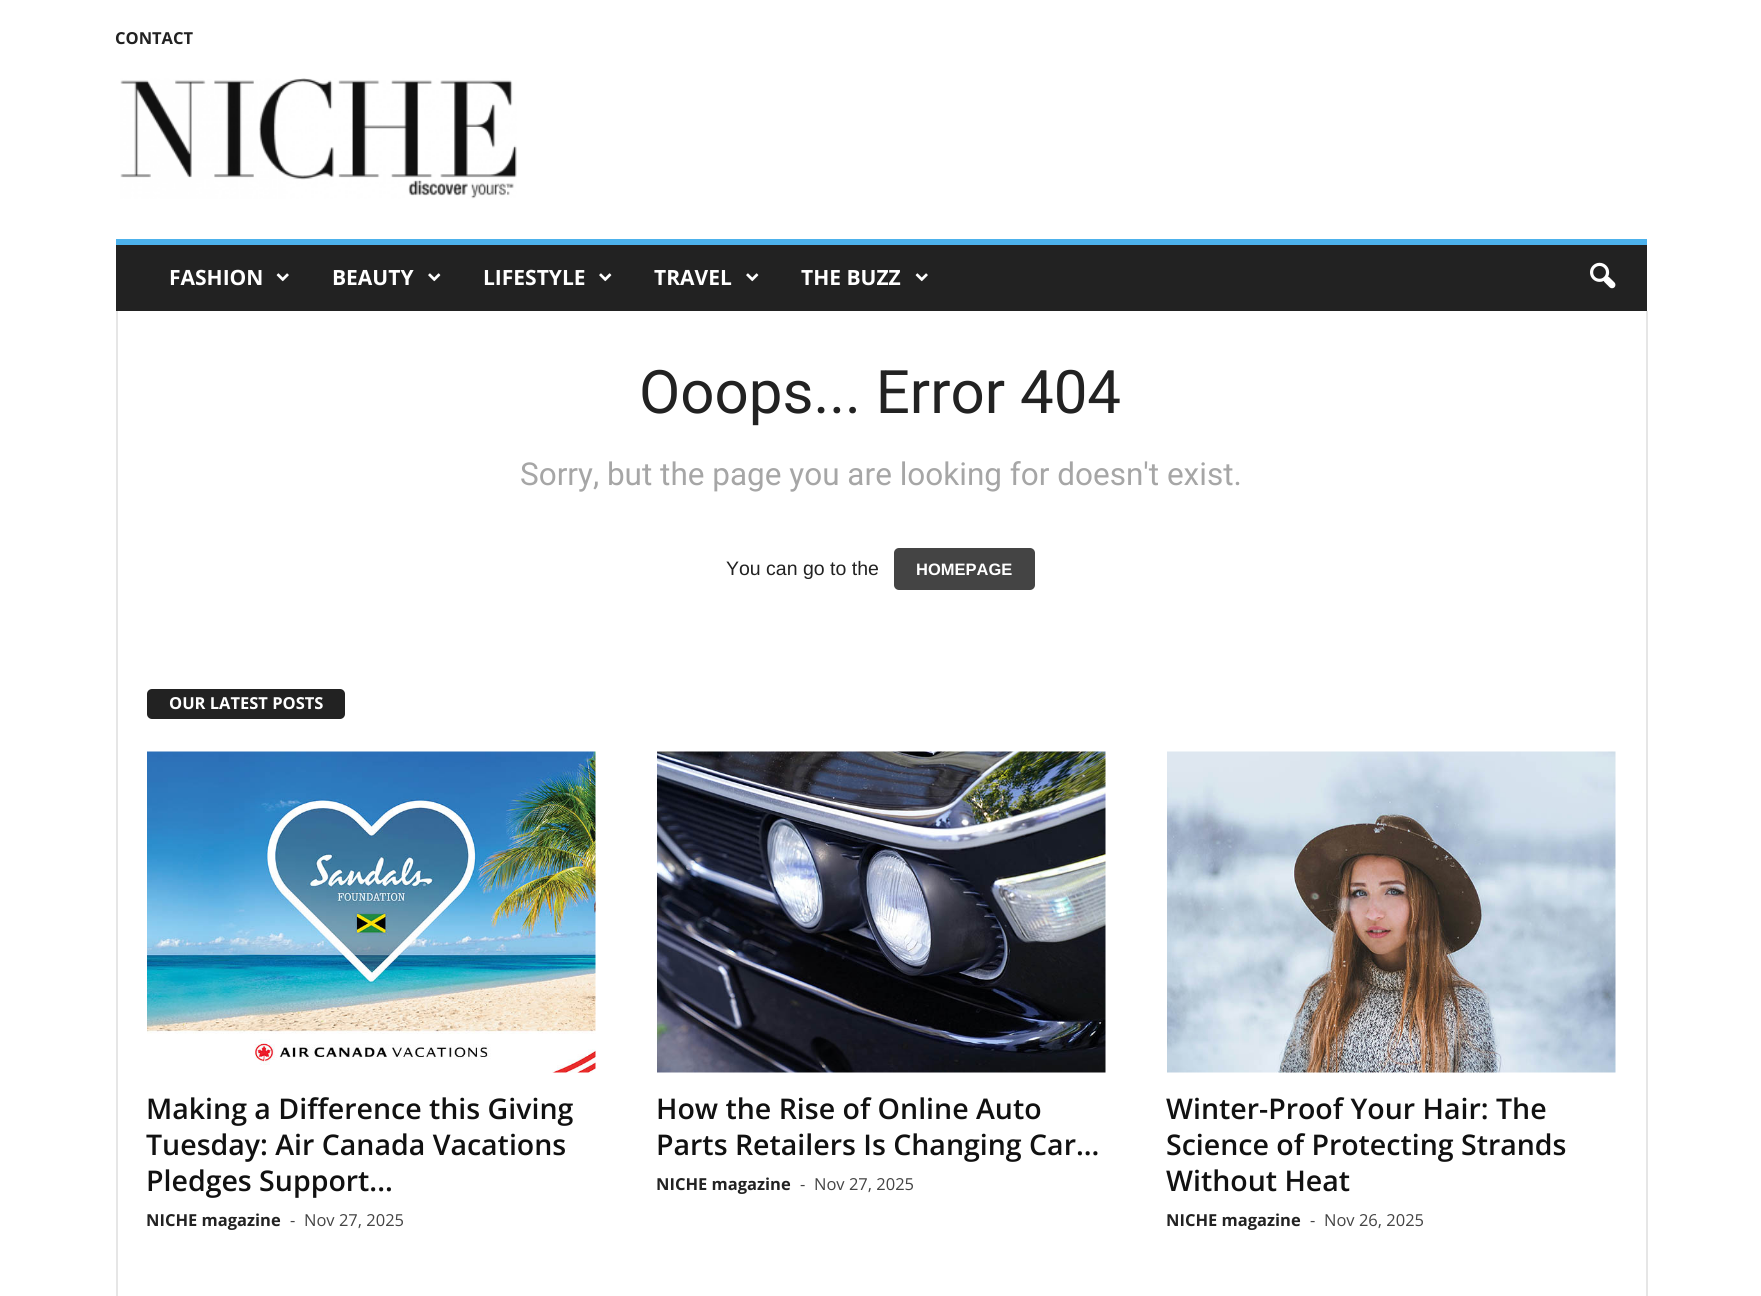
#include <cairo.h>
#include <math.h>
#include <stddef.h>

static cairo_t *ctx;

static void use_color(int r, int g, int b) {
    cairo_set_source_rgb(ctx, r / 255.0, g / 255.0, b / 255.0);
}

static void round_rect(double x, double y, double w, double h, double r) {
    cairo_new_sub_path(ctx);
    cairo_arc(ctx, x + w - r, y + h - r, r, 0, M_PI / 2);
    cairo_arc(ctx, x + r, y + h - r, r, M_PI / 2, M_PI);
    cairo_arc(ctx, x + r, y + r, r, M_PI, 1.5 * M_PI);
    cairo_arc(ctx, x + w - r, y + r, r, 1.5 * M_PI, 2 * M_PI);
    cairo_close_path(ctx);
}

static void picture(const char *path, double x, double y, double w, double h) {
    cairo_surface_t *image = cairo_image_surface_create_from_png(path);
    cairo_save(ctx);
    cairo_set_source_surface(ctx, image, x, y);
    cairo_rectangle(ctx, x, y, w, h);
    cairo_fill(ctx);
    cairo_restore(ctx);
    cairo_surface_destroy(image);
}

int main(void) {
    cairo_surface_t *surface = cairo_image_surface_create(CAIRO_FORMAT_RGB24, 1761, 1296);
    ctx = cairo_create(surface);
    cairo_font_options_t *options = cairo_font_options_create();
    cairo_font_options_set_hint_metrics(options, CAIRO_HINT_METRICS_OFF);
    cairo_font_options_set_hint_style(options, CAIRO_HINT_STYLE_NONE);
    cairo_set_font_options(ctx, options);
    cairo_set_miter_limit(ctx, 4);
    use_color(255, 255, 255);
    cairo_paint(ctx);
    cairo_select_font_face(ctx, "Open Sans", CAIRO_FONT_SLANT_NORMAL, CAIRO_FONT_WEIGHT_BOLD);
    cairo_set_font_size(ctx, 16.5);
    use_color(34, 34, 34);
    cairo_move_to(ctx, 115, 44);
    cairo_show_text(ctx, "CONTACT");
    picture("img1.png", 120, 78, 397, 121);
    cairo_rectangle(ctx, 116, 245, 1531, 66);
    cairo_fill(ctx);
    use_color(77, 178, 236);
    cairo_rectangle(ctx, 116, 239, 1531, 6);
    cairo_fill(ctx);
    cairo_set_font_size(ctx, 21);
    use_color(255, 255, 255);
    cairo_move_to(ctx, 169, 285);
    cairo_show_text(ctx, "FASHION");
    picture("img2.png", 276, 273, 13, 9);
    cairo_move_to(ctx, 332, 285);
    cairo_show_text(ctx, "BEAUTY");
    picture("img3.png", 428, 273, 13, 9);
    cairo_move_to(ctx, 483, 285);
    cairo_show_text(ctx, "LIFESTYLE");
    picture("img3.png", 599, 273, 13, 9);
    cairo_move_to(ctx, 654, 285);
    cairo_show_text(ctx, "TRAVEL");
    picture("img3.png", 746, 273, 13, 9);
    cairo_move_to(ctx, 801, 285);
    cairo_show_text(ctx, "THE BUZZ");
    picture("img2.png", 915, 273, 13, 9);
    picture("img4.png", 1590, 262, 26, 27);
    use_color(230, 230, 230);
    cairo_rectangle(ctx, 116, 311, 2, 985);
    cairo_fill(ctx);
    cairo_select_font_face(ctx, "Roboto", CAIRO_FONT_SLANT_NORMAL, CAIRO_FONT_WEIGHT_NORMAL);
    cairo_set_font_size(ctx, 60);
    use_color(34, 34, 34);
    cairo_move_to(ctx, 639, 413);
    cairo_show_text(ctx, "Ooops... Error 404");
    cairo_set_font_size(ctx, 31.5);
    use_color(166, 166, 166);
    cairo_move_to(ctx, 520, 485);
    cairo_show_text(ctx, "Sorry, but the page you are looking for doesn't exist.");
    cairo_select_font_face(ctx, "Liberation Sans", CAIRO_FONT_SLANT_NORMAL, CAIRO_FONT_WEIGHT_NORMAL);
    cairo_set_font_size(ctx, 19.5);
    use_color(34, 34, 34);
    cairo_move_to(ctx, 726, 575);
    cairo_show_text(ctx, "You can go to the");
    use_color(68, 68, 68);
    round_rect(894, 548, 141, 42, 5);
    cairo_fill(ctx);
    cairo_select_font_face(ctx, "Liberation Sans", CAIRO_FONT_SLANT_NORMAL, CAIRO_FONT_WEIGHT_BOLD);
    cairo_set_font_size(ctx, 16.5);
    use_color(255, 255, 255);
    cairo_move_to(ctx, 916, 575);
    cairo_show_text(ctx, "HOMEPAGE");
    use_color(34, 34, 34);
    round_rect(147, 689, 198, 30, 5);
    cairo_fill(ctx);
    cairo_select_font_face(ctx, "Open Sans", CAIRO_FONT_SLANT_NORMAL, CAIRO_FONT_WEIGHT_BOLD);
    use_color(255, 255, 255);
    cairo_move_to(ctx, 169, 709);
    cairo_show_text(ctx, "OUR LATEST POSTS");
    picture("img5.png", 147, 751, 449, 322);
    cairo_select_font_face(ctx, "Open Sans SemiBold", CAIRO_FONT_SLANT_NORMAL, CAIRO_FONT_WEIGHT_NORMAL);
    cairo_set_font_size(ctx, 28.5);
    use_color(17, 17, 17);
    cairo_move_to(ctx, 146, 1119);
    cairo_show_text(ctx, "Making a Difference this Giving");
    cairo_move_to(ctx, 146, 1155);
    cairo_show_text(ctx, "Tuesday: Air Canada Vacations");
    cairo_move_to(ctx, 146, 1191);
    cairo_show_text(ctx, "Pledges Support...");
    cairo_select_font_face(ctx, "Open Sans", CAIRO_FONT_SLANT_NORMAL, CAIRO_FONT_WEIGHT_BOLD);
    cairo_set_font_size(ctx, 16.5);
    use_color(34, 34, 34);
    cairo_move_to(ctx, 146, 1226);
    cairo_show_text(ctx, "NICHE magazine");
    cairo_select_font_face(ctx, "Open Sans", CAIRO_FONT_SLANT_NORMAL, CAIRO_FONT_WEIGHT_NORMAL);
    use_color(68, 68, 68);
    cairo_move_to(ctx, 290, 1226);
    cairo_show_text(ctx, "-");
    cairo_move_to(ctx, 304, 1226);
    cairo_show_text(ctx, "Nov 27, 2025");
    picture("img6.png", 657, 751, 449, 322);
    cairo_select_font_face(ctx, "Open Sans SemiBold", CAIRO_FONT_SLANT_NORMAL, CAIRO_FONT_WEIGHT_NORMAL);
    cairo_set_font_size(ctx, 28.5);
    use_color(17, 17, 17);
    cairo_move_to(ctx, 656, 1119);
    cairo_show_text(ctx, "How the Rise of Online Auto");
    cairo_move_to(ctx, 656, 1155);
    cairo_show_text(ctx, "Parts Retailers Is Changing Car...");
    cairo_select_font_face(ctx, "Open Sans", CAIRO_FONT_SLANT_NORMAL, CAIRO_FONT_WEIGHT_BOLD);
    cairo_set_font_size(ctx, 16.5);
    use_color(34, 34, 34);
    cairo_move_to(ctx, 656, 1190);
    cairo_show_text(ctx, "NICHE magazine");
    cairo_select_font_face(ctx, "Open Sans", CAIRO_FONT_SLANT_NORMAL, CAIRO_FONT_WEIGHT_NORMAL);
    use_color(68, 68, 68);
    cairo_move_to(ctx, 800, 1190);
    cairo_show_text(ctx, "-");
    cairo_move_to(ctx, 814, 1190);
    cairo_show_text(ctx, "Nov 27, 2025");
    picture("img7.png", 1167, 751, 449, 322);
    cairo_select_font_face(ctx, "Open Sans SemiBold", CAIRO_FONT_SLANT_NORMAL, CAIRO_FONT_WEIGHT_NORMAL);
    cairo_set_font_size(ctx, 28.5);
    use_color(17, 17, 17);
    cairo_move_to(ctx, 1166, 1119);
    cairo_show_text(ctx, "Winter-Proof Your Hair: The");
    cairo_move_to(ctx, 1166, 1155);
    cairo_show_text(ctx, "Science of Protecting Strands");
    cairo_move_to(ctx, 1166, 1191);
    cairo_show_text(ctx, "Without Heat");
    cairo_select_font_face(ctx, "Open Sans", CAIRO_FONT_SLANT_NORMAL, CAIRO_FONT_WEIGHT_BOLD);
    cairo_set_font_size(ctx, 16.5);
    use_color(34, 34, 34);
    cairo_move_to(ctx, 1166, 1226);
    cairo_show_text(ctx, "NICHE magazine");
    cairo_select_font_face(ctx, "Open Sans", CAIRO_FONT_SLANT_NORMAL, CAIRO_FONT_WEIGHT_NORMAL);
    use_color(68, 68, 68);
    cairo_move_to(ctx, 1310, 1226);
    cairo_show_text(ctx, "-");
    cairo_move_to(ctx, 1324, 1226);
    cairo_show_text(ctx, "Nov 26, 2025");
    use_color(230, 230, 230);
    cairo_rectangle(ctx, 1646, 311, 2, 985);
    cairo_fill(ctx);
    cairo_surface_write_to_png(surface, "result.png");
    cairo_font_options_destroy(options);
    cairo_destroy(ctx);
    cairo_surface_destroy(surface);
    return 0;
}
